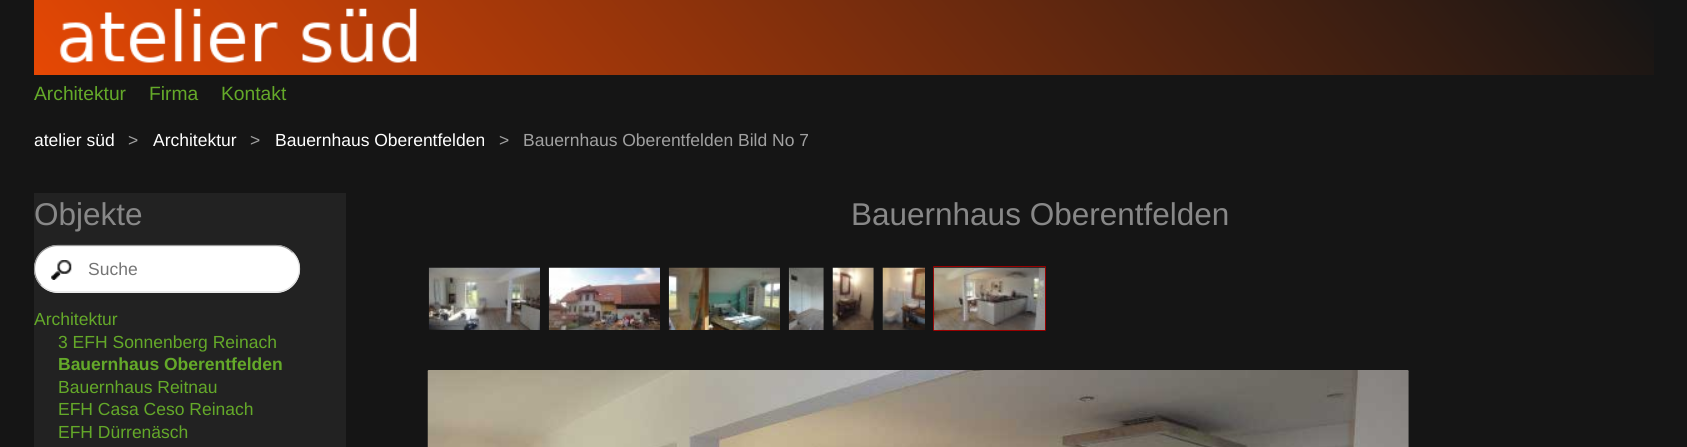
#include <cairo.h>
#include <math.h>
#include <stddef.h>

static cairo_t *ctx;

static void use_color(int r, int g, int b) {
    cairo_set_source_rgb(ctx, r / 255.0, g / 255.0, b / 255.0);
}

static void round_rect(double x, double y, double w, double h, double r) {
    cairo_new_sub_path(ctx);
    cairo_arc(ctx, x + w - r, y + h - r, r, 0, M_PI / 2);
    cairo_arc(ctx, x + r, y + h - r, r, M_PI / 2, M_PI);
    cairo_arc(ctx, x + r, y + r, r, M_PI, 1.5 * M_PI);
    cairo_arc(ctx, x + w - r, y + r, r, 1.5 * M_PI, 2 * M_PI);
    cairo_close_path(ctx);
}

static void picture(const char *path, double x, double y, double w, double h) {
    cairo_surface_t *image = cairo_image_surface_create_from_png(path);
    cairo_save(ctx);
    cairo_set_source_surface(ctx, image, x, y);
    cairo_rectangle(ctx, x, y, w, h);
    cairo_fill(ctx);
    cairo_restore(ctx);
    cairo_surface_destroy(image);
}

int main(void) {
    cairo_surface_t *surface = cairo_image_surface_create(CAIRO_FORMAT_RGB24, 1687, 447);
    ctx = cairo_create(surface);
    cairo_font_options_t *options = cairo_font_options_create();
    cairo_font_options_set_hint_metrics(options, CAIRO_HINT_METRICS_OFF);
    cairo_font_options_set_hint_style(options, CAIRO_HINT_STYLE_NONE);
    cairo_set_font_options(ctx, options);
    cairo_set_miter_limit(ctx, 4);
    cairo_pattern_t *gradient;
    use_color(21, 21, 21);
    cairo_paint(ctx);
    gradient = cairo_pattern_create_linear(350, 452, 1338, -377);
    cairo_pattern_add_color_stop_rgba(gradient, 0, 0.902, 0.282, 0.016, 1);
    cairo_pattern_add_color_stop_rgba(gradient, 1, 0.082, 0.082, 0.082, 1);
    cairo_set_source(ctx, gradient);
    cairo_pattern_destroy(gradient);
    cairo_rectangle(ctx, 34, 0, 1620, 75);
    cairo_fill(ctx);
    picture("img1.png", 59, 8, 358, 55);
    cairo_select_font_face(ctx, "Liberation Sans", CAIRO_FONT_SLANT_NORMAL, CAIRO_FONT_WEIGHT_NORMAL);
    cairo_set_font_size(ctx, 19.25);
    use_color(100, 169, 41);
    cairo_move_to(ctx, 34, 100);
    cairo_show_text(ctx, "Architektur");
    cairo_move_to(ctx, 149, 100);
    cairo_show_text(ctx, "Firma");
    cairo_move_to(ctx, 221, 100);
    cairo_show_text(ctx, "Kontakt");
    cairo_set_font_size(ctx, 17.5);
    use_color(255, 255, 255);
    cairo_move_to(ctx, 34, 146);
    cairo_show_text(ctx, "atelier süd");
    use_color(161, 161, 161);
    cairo_move_to(ctx, 128, 146);
    cairo_show_text(ctx, ">");
    use_color(255, 255, 255);
    cairo_move_to(ctx, 153, 146);
    cairo_show_text(ctx, "Architektur");
    use_color(161, 161, 161);
    cairo_move_to(ctx, 250, 146);
    cairo_show_text(ctx, ">");
    use_color(255, 255, 255);
    cairo_move_to(ctx, 275, 146);
    cairo_show_text(ctx, "Bauernhaus Oberentfelden");
    use_color(161, 161, 161);
    cairo_move_to(ctx, 499, 146);
    cairo_show_text(ctx, ">");
    cairo_move_to(ctx, 523, 146);
    cairo_show_text(ctx, "Bauernhaus Oberentfelden Bild No 7");
    use_color(34, 34, 34);
    cairo_rectangle(ctx, 34, 193, 312, 254);
    cairo_fill(ctx);
    cairo_set_font_size(ctx, 31.5);
    use_color(136, 136, 136);
    cairo_move_to(ctx, 34, 225);
    cairo_show_text(ctx, "Objekte");
    use_color(255, 255, 255);
    round_rect(34, 245, 266, 48, 24);
    cairo_fill(ctx);
    cairo_new_path(ctx);
    cairo_move_to(ctx, 292.5, 252.5);
    cairo_curve_to(ctx, 297, 256.5, 299.5, 262.5, 299.5, 269);
    cairo_curve_to(ctx, 299.5, 275, 297, 281, 292.5, 285);
    cairo_curve_to(ctx, 288.5, 289.5, 282.5, 292, 276, 292);
    cairo_line_to(ctx, 57.5, 292);
    cairo_curve_to(ctx, 51.5, 292, 45.5, 289.5, 41, 285);
    use_color(221, 221, 221);
    cairo_set_line_width(ctx, 1.2);
    cairo_stroke(ctx);
    cairo_new_path(ctx);
    cairo_move_to(ctx, 41, 285);
    cairo_curve_to(ctx, 37, 281, 34.5, 275, 34.5, 269);
    cairo_curve_to(ctx, 34.5, 262.5, 37, 256.5, 41, 252.5);
    cairo_curve_to(ctx, 45.5, 248, 51.5, 245.5, 57.5, 245.5);
    cairo_line_to(ctx, 276, 245.5);
    cairo_curve_to(ctx, 282.5, 245.5, 288.5, 248, 292.5, 252.5);
    use_color(153, 153, 153);
    cairo_stroke(ctx);
    picture("img2.png", 51, 260, 21, 20);
    cairo_set_font_size(ctx, 17.5);
    use_color(117, 117, 117);
    cairo_move_to(ctx, 88, 275);
    cairo_show_text(ctx, "Suche");
    use_color(100, 169, 41);
    cairo_move_to(ctx, 34, 325);
    cairo_show_text(ctx, "Architektur");
    cairo_move_to(ctx, 58, 348);
    cairo_show_text(ctx, "3 EFH Sonnenberg Reinach");
    cairo_select_font_face(ctx, "Liberation Sans", CAIRO_FONT_SLANT_NORMAL, CAIRO_FONT_WEIGHT_BOLD);
    cairo_move_to(ctx, 58, 370);
    cairo_show_text(ctx, "Bauernhaus Oberentfelden");
    cairo_select_font_face(ctx, "Liberation Sans", CAIRO_FONT_SLANT_NORMAL, CAIRO_FONT_WEIGHT_NORMAL);
    cairo_move_to(ctx, 58, 393);
    cairo_show_text(ctx, "Bauernhaus Reitnau");
    cairo_move_to(ctx, 58, 415);
    cairo_show_text(ctx, "EFH Casa Ceso Reinach");
    cairo_move_to(ctx, 58, 438);
    cairo_show_text(ctx, "EFH Dürrenäsch");
    cairo_set_font_size(ctx, 31.5);
    use_color(136, 136, 136);
    cairo_move_to(ctx, 851, 225);
    cairo_show_text(ctx, "Bauernhaus Oberentfelden");
    picture("img3.png", 428, 267, 112, 63);
    picture("img4.png", 548, 267, 112, 63);
    picture("img5.png", 668, 267, 112, 63);
    picture("img6.png", 788, 267, 36, 63);
    picture("img7.png", 832, 267, 42, 63);
    picture("img8.png", 882, 267, 43, 63);
    round_rect(933.5, 266.5, 112, 64, 0.5);
    use_color(153, 0, 0);
    cairo_set_line_width(ctx, 1);
    cairo_stroke(ctx);
    picture("img9.png", 933, 267, 112, 63);
    picture("img10.png", 427, 370, 982, 77);
    cairo_surface_write_to_png(surface, "result.png");
    cairo_font_options_destroy(options);
    cairo_destroy(ctx);
    cairo_surface_destroy(surface);
    return 0;
}
